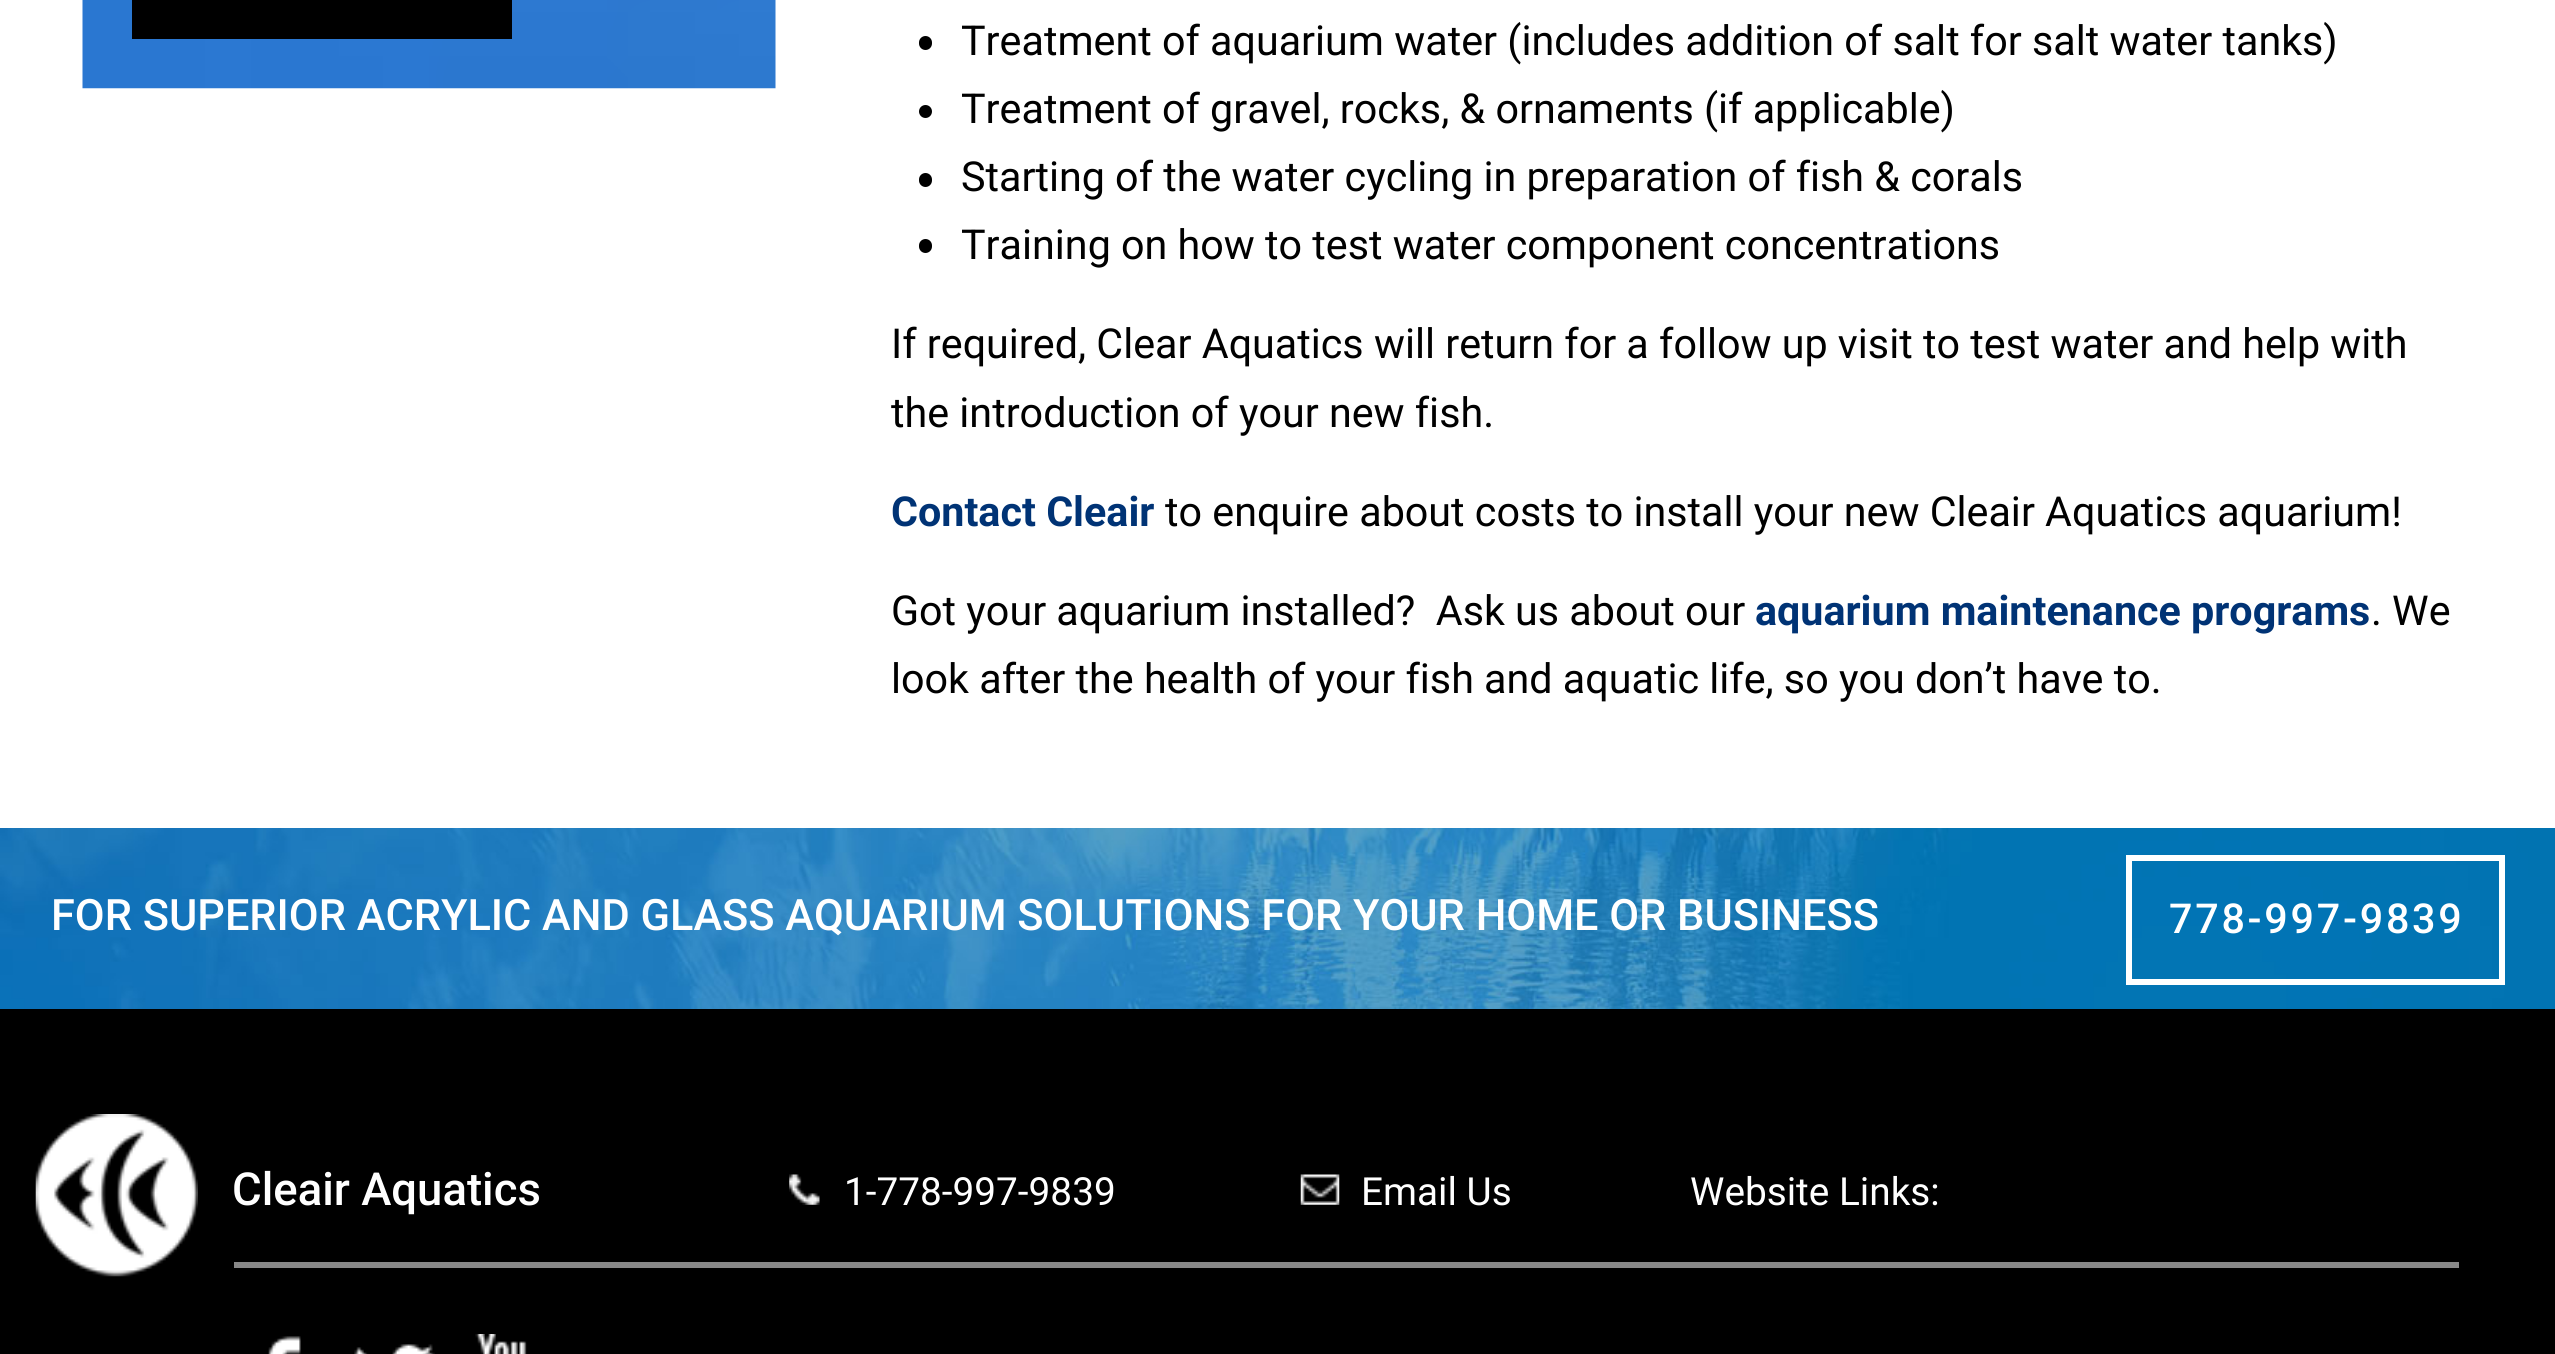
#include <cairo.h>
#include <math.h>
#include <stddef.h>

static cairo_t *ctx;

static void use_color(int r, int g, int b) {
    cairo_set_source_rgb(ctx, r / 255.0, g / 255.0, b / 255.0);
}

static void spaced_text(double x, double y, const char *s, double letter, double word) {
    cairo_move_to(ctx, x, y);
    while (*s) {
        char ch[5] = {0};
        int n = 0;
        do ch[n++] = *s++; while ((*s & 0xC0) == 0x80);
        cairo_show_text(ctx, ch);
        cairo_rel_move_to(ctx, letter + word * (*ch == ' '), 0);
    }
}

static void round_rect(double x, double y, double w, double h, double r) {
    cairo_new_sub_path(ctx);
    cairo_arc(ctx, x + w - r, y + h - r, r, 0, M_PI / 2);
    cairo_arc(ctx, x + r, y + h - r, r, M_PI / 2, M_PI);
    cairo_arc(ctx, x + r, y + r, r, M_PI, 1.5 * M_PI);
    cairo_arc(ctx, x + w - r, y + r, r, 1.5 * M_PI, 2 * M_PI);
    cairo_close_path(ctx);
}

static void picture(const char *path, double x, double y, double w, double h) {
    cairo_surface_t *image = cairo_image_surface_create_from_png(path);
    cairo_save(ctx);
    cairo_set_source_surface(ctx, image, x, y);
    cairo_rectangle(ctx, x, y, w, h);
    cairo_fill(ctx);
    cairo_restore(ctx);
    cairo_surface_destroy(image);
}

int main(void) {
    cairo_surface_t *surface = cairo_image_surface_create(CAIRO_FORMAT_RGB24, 2555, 1354);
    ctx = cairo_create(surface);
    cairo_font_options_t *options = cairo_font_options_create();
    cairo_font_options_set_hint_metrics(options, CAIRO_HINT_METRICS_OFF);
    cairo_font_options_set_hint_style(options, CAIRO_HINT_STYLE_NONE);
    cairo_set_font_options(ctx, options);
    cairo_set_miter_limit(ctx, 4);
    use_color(255, 255, 255);
    cairo_paint(ctx);
    picture("img1.png", 82, 0, 694, 89);
    use_color(0, 0, 0);
    cairo_rectangle(ctx, 132, 0, 380, 39);
    cairo_fill(ctx);
    round_rect(919, 36, 13, 14, 6.5);
    cairo_fill(ctx);
    cairo_select_font_face(ctx, "Roboto", CAIRO_FONT_SLANT_NORMAL, CAIRO_FONT_WEIGHT_NORMAL);
    cairo_set_font_size(ctx, 41.25);
    cairo_move_to(ctx, 961, 55);
    cairo_show_text(ctx, "Treatment of aquarium water (includes addition of salt for salt water tanks)");
    cairo_new_path(ctx);
    cairo_arc(ctx, 925.5, 111.5, 6.5, 0, 2 * M_PI);
    cairo_fill(ctx);
    cairo_move_to(ctx, 961, 123);
    cairo_show_text(ctx, "Treatment of gravel, rocks, & ornaments (if applicable)");
    round_rect(919, 173, 13, 14, 6.5);
    cairo_fill(ctx);
    cairo_move_to(ctx, 961, 191);
    cairo_show_text(ctx, "Starting of the water cycling in preparation of fish & corals");
    round_rect(919, 239, 13, 14, 6.5);
    cairo_fill(ctx);
    cairo_move_to(ctx, 961, 259);
    cairo_show_text(ctx, "Training on how to test water component concentrations");
    cairo_move_to(ctx, 891, 358);
    cairo_show_text(ctx, "If required, Clear Aquatics will return for a follow up visit to test water and help with");
    cairo_move_to(ctx, 891, 427);
    cairo_show_text(ctx, "the introduction of your new fish.");
    cairo_select_font_face(ctx, "Roboto", CAIRO_FONT_SLANT_NORMAL, CAIRO_FONT_WEIGHT_BOLD);
    use_color(0, 51, 117);
    cairo_move_to(ctx, 891, 526);
    cairo_show_text(ctx, "Contact Cleair");
    cairo_select_font_face(ctx, "Roboto", CAIRO_FONT_SLANT_NORMAL, CAIRO_FONT_WEIGHT_NORMAL);
    use_color(0, 0, 0);
    cairo_move_to(ctx, 1165, 526);
    cairo_show_text(ctx, "to enquire about costs to install your new Cleair Aquatics aquarium!");
    cairo_move_to(ctx, 891, 625);
    cairo_show_text(ctx, "Got your aquarium installed?  Ask us about our");
    cairo_select_font_face(ctx, "Roboto", CAIRO_FONT_SLANT_NORMAL, CAIRO_FONT_WEIGHT_BOLD);
    use_color(0, 51, 117);
    cairo_move_to(ctx, 1755, 625);
    cairo_show_text(ctx, "aquarium maintenance programs");
    cairo_select_font_face(ctx, "Roboto", CAIRO_FONT_SLANT_NORMAL, CAIRO_FONT_WEIGHT_NORMAL);
    use_color(0, 0, 0);
    cairo_move_to(ctx, 2371, 625);
    cairo_show_text(ctx, ". We");
    cairo_move_to(ctx, 891, 693);
    cairo_show_text(ctx, "look after the health of your fish and aquatic life, so you don’t have to.");
    picture("img2.png", 0, 828, 2555, 181);
    cairo_select_font_face(ctx, "Roboto Medium", CAIRO_FONT_SLANT_NORMAL, CAIRO_FONT_WEIGHT_NORMAL);
    cairo_set_font_size(ctx, 43.3);
    use_color(255, 255, 255);
    cairo_move_to(ctx, 51, 930);
    cairo_show_text(ctx, "FOR SUPERIOR ACRYLIC AND GLASS AQUARIUM SOLUTIONS FOR YOUR HOME OR BUSINESS");
    cairo_rectangle(ctx, 2129, 858, 373, 124);
    cairo_set_line_width(ctx, 6);
    cairo_stroke(ctx);
    cairo_set_font_size(ctx, 41.25);
    spaced_text(2169, 933, "778-997-9839", 2.75, 0);
    use_color(0, 0, 0);
    cairo_rectangle(ctx, 0, 1009, 2555, 345);
    cairo_fill(ctx);
    picture("img3.png", 35, 1114, 163, 163);
    use_color(136, 136, 136);
    cairo_rectangle(ctx, 234, 1262, 2225, 6);
    cairo_fill(ctx);
    cairo_set_font_size(ctx, 45.5);
    use_color(255, 255, 255);
    cairo_move_to(ctx, 232, 1205);
    cairo_show_text(ctx, "Cleair Aquatics");
    picture("img4.png", 789, 1174, 31, 31);
    cairo_select_font_face(ctx, "Roboto", CAIRO_FONT_SLANT_NORMAL, CAIRO_FONT_WEIGHT_NORMAL);
    cairo_set_font_size(ctx, 38.75);
    cairo_move_to(ctx, 844, 1205);
    cairo_show_text(ctx, "1-778-997-9839");
    picture("img5.png", 1300, 1174, 40, 31);
    cairo_move_to(ctx, 1361, 1205);
    cairo_show_text(ctx, "Email Us");
    cairo_move_to(ctx, 1690, 1205);
    cairo_show_text(ctx, "Website Links:");
    picture("img6.png", 268, 1336, 33, 18);
    picture("img7.png", 354, 1344, 81, 10);
    picture("img8.png", 475, 1334, 52, 20);
    cairo_surface_write_to_png(surface, "result.png");
    cairo_font_options_destroy(options);
    cairo_destroy(ctx);
    cairo_surface_destroy(surface);
    return 0;
}
